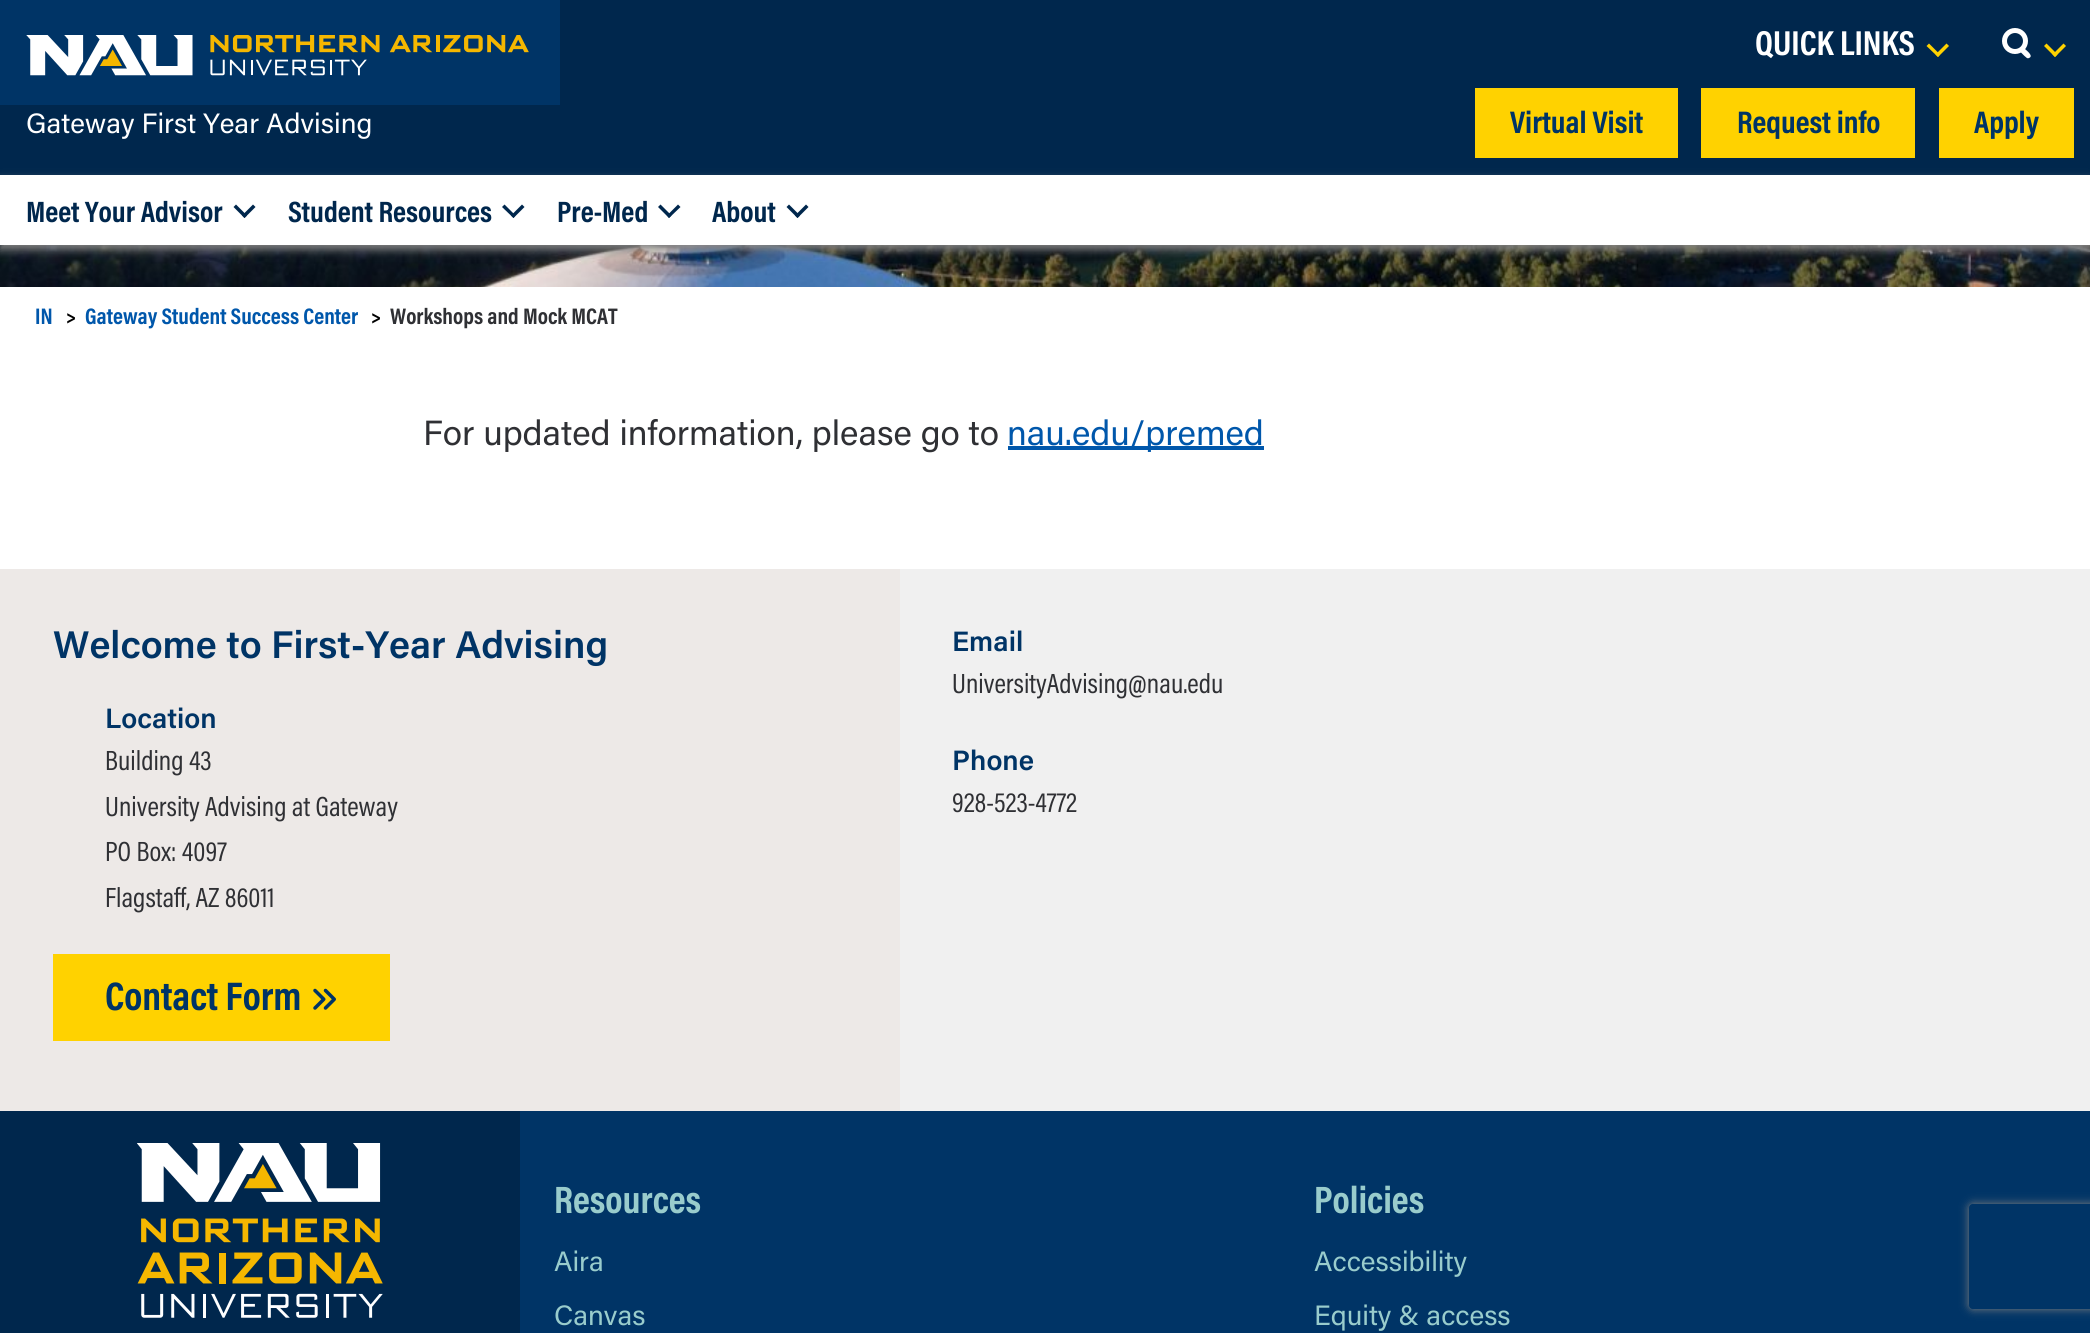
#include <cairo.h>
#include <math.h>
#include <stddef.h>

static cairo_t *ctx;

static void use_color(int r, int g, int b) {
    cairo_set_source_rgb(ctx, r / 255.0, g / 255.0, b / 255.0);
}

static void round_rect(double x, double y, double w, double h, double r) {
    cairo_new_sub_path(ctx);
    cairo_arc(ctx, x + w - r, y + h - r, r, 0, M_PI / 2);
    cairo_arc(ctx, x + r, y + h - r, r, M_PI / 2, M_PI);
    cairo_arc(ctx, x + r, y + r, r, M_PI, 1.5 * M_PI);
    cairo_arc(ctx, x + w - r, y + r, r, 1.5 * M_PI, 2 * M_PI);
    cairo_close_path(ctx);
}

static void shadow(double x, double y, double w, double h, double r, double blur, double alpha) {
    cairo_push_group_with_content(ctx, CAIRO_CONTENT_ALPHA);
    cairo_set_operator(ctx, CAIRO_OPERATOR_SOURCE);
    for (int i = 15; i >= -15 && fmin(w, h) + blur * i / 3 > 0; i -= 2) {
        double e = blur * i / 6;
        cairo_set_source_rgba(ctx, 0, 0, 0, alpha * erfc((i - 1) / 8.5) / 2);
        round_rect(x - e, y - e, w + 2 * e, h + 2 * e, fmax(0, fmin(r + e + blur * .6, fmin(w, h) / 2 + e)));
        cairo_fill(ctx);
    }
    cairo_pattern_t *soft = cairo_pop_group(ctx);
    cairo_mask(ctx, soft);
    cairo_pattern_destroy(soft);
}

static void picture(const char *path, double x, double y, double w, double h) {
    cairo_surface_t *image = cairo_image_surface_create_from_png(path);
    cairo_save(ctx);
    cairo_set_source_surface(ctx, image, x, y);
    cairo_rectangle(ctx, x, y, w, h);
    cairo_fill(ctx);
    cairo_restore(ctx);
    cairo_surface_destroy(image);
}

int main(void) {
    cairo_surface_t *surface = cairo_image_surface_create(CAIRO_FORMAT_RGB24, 2090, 1333);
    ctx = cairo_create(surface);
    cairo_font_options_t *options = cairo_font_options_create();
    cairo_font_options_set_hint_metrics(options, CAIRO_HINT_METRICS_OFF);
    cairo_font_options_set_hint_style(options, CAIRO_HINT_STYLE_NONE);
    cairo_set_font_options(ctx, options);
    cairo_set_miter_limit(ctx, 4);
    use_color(255, 255, 255);
    cairo_paint(ctx);
    use_color(0, 39, 77);
    cairo_rectangle(ctx, 560, 0, 1530, 70);
    cairo_fill(ctx);
    cairo_rectangle(ctx, 0, 70, 2090, 105);
    cairo_fill(ctx);
    use_color(0, 52, 102);
    cairo_rectangle(ctx, 0, 0, 560, 105);
    cairo_fill(ctx);
    picture("img1.png", 26, 35, 503, 41);
    cairo_select_font_face(ctx, "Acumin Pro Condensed", CAIRO_FONT_SLANT_NORMAL, CAIRO_FONT_WEIGHT_BOLD);
    cairo_set_font_size(ctx, 35);
    use_color(255, 255, 255);
    cairo_move_to(ctx, 1755, 55);
    cairo_show_text(ctx, "QUICK LINKS");
    use_color(255, 210, 0);
    cairo_new_path(ctx);
    cairo_move_to(ctx, 1946.5, 43.5);
    cairo_line_to(ctx, 1949, 46);
    cairo_line_to(ctx, 1938, 57);
    cairo_line_to(ctx, 1935.5, 54.5);
    cairo_close_path(ctx);
    cairo_fill(ctx);
    cairo_new_path(ctx);
    cairo_move_to(ctx, 1929, 43.5);
    cairo_line_to(ctx, 1940, 54.5);
    cairo_line_to(ctx, 1938, 57);
    cairo_line_to(ctx, 1926.5, 46);
    cairo_close_path(ctx);
    cairo_fill(ctx);
    cairo_arc(ctx, 2015, 41, 10.5, 0, 2 * M_PI);
    use_color(255, 255, 255);
    cairo_set_line_width(ctx, 5);
    cairo_stroke(ctx);
    cairo_new_path(ctx);
    cairo_move_to(ctx, 2025, 49);
    cairo_curve_to(ctx, 2026.5, 50.5, 2034, 56, 2029, 58);
    cairo_curve_to(ctx, 2027, 59, 2026, 57, 2024.5, 56);
    cairo_line_to(ctx, 2020.5, 52);
    cairo_curve_to(ctx, 2019.5, 49.5, 2023, 47, 2025, 49);
    cairo_close_path(ctx);
    cairo_fill(ctx);
    use_color(255, 210, 0);
    cairo_new_path(ctx);
    cairo_move_to(ctx, 2063.5, 43.5);
    cairo_line_to(ctx, 2066, 46);
    cairo_line_to(ctx, 2055, 57);
    cairo_line_to(ctx, 2052.5, 54.5);
    cairo_close_path(ctx);
    cairo_fill(ctx);
    cairo_new_path(ctx);
    cairo_move_to(ctx, 2046.5, 43.5);
    cairo_line_to(ctx, 2057.5, 54.5);
    cairo_line_to(ctx, 2055, 57);
    cairo_line_to(ctx, 2044, 46);
    cairo_close_path(ctx);
    cairo_fill(ctx);
    cairo_select_font_face(ctx, "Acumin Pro", CAIRO_FONT_SLANT_NORMAL, CAIRO_FONT_WEIGHT_NORMAL);
    cairo_set_font_size(ctx, 28);
    use_color(255, 255, 255);
    cairo_move_to(ctx, 26, 133);
    cairo_show_text(ctx, "Gateway First Year Advising");
    use_color(255, 210, 0);
    cairo_rectangle(ctx, 1475, 88, 203, 70);
    cairo_fill(ctx);
    cairo_select_font_face(ctx, "Acumin Pro Condensed", CAIRO_FONT_SLANT_NORMAL, CAIRO_FONT_WEIGHT_BOLD);
    cairo_set_font_size(ctx, 31.5);
    use_color(0, 52, 102);
    cairo_move_to(ctx, 1510, 133);
    cairo_show_text(ctx, "Virtual Visit");
    use_color(255, 210, 0);
    cairo_rectangle(ctx, 1701, 88, 214, 70);
    cairo_fill(ctx);
    use_color(0, 52, 102);
    cairo_move_to(ctx, 1737, 133);
    cairo_show_text(ctx, "Request info");
    use_color(255, 210, 0);
    cairo_rectangle(ctx, 1939, 88, 135, 70);
    cairo_fill(ctx);
    use_color(0, 52, 102);
    cairo_move_to(ctx, 1974, 133);
    cairo_show_text(ctx, "Apply");
    picture("img2.png", 0, 245, 2090, 42);
    use_color(128, 128, 128);
    shadow(0, 180, 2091, 70, 0, 4.5, 1);
    use_color(255, 255, 255);
    cairo_rectangle(ctx, 0, 175, 2090, 70);
    cairo_fill(ctx);
    cairo_set_font_size(ctx, 29.75);
    use_color(0, 39, 77);
    cairo_move_to(ctx, 26, 222);
    cairo_show_text(ctx, "Meet Your Advisor");
    cairo_new_path(ctx);
    cairo_move_to(ctx, 253, 204.5);
    cairo_line_to(ctx, 255.5, 207);
    cairo_line_to(ctx, 244.5, 218);
    cairo_line_to(ctx, 242, 215.5);
    cairo_close_path(ctx);
    cairo_fill(ctx);
    cairo_new_path(ctx);
    cairo_move_to(ctx, 236, 204.5);
    cairo_line_to(ctx, 247, 215.5);
    cairo_line_to(ctx, 244.5, 218);
    cairo_line_to(ctx, 233.5, 207);
    cairo_close_path(ctx);
    cairo_fill(ctx);
    cairo_move_to(ctx, 288, 222);
    cairo_show_text(ctx, "Student Resources");
    cairo_new_path(ctx);
    cairo_move_to(ctx, 522, 204.5);
    cairo_line_to(ctx, 524.5, 207);
    cairo_line_to(ctx, 513.5, 218);
    cairo_line_to(ctx, 511, 215.5);
    cairo_close_path(ctx);
    cairo_fill(ctx);
    cairo_new_path(ctx);
    cairo_move_to(ctx, 504.5, 204.5);
    cairo_line_to(ctx, 515.5, 215.5);
    cairo_line_to(ctx, 513.5, 218);
    cairo_line_to(ctx, 502, 207);
    cairo_close_path(ctx);
    cairo_fill(ctx);
    cairo_move_to(ctx, 557, 222);
    cairo_show_text(ctx, "Pre-Med");
    cairo_new_path(ctx);
    cairo_move_to(ctx, 678, 204.5);
    cairo_line_to(ctx, 680.5, 207);
    cairo_line_to(ctx, 669, 218);
    cairo_line_to(ctx, 667, 215.5);
    cairo_close_path(ctx);
    cairo_fill(ctx);
    cairo_new_path(ctx);
    cairo_move_to(ctx, 660.5, 204.5);
    cairo_line_to(ctx, 671.5, 215.5);
    cairo_line_to(ctx, 669, 218);
    cairo_line_to(ctx, 658, 207);
    cairo_close_path(ctx);
    cairo_fill(ctx);
    cairo_move_to(ctx, 712, 222);
    cairo_show_text(ctx, "About");
    cairo_new_path(ctx);
    cairo_move_to(ctx, 806, 204.5);
    cairo_line_to(ctx, 808.5, 207);
    cairo_line_to(ctx, 797.5, 218);
    cairo_line_to(ctx, 795, 215.5);
    cairo_close_path(ctx);
    cairo_fill(ctx);
    cairo_new_path(ctx);
    cairo_move_to(ctx, 789, 204.5);
    cairo_line_to(ctx, 800, 215.5);
    cairo_line_to(ctx, 797.5, 218);
    cairo_line_to(ctx, 786.5, 207);
    cairo_close_path(ctx);
    cairo_fill(ctx);
    cairo_set_font_size(ctx, 22.75);
    use_color(0, 87, 171);
    cairo_move_to(ctx, 35, 324);
    cairo_show_text(ctx, "IN");
    use_color(0, 0, 0);
    cairo_move_to(ctx, 66, 324);
    cairo_show_text(ctx, ">");
    use_color(0, 87, 171);
    cairo_move_to(ctx, 85, 324);
    cairo_show_text(ctx, "Gateway Student Success Center");
    use_color(0, 0, 0);
    cairo_move_to(ctx, 371, 324);
    cairo_show_text(ctx, ">");
    use_color(47, 48, 52);
    cairo_move_to(ctx, 390, 324);
    cairo_show_text(ctx, "Workshops and Mock MCAT");
    cairo_select_font_face(ctx, "Acumin Pro", CAIRO_FONT_SLANT_NORMAL, CAIRO_FONT_WEIGHT_NORMAL);
    cairo_set_font_size(ctx, 35);
    cairo_move_to(ctx, 423, 445);
    cairo_show_text(ctx, "For updated information, please go to");
    use_color(0, 87, 171);
    cairo_rectangle(ctx, 1008, 446, 256, 4);
    cairo_fill(ctx);
    cairo_move_to(ctx, 1007, 445);
    cairo_show_text(ctx, "nau.edu/premed");
    use_color(237, 233, 231);
    cairo_rectangle(ctx, 0, 569, 900, 542);
    cairo_fill(ctx);
    cairo_select_font_face(ctx, "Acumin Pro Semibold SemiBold", CAIRO_FONT_SLANT_NORMAL, CAIRO_FONT_WEIGHT_NORMAL);
    cairo_set_font_size(ctx, 38.5);
    use_color(0, 52, 102);
    cairo_move_to(ctx, 53, 658);
    cairo_show_text(ctx, "Welcome to First-Year Advising");
    cairo_set_font_size(ctx, 28);
    cairo_move_to(ctx, 105, 728);
    cairo_show_text(ctx, "Location");
    cairo_select_font_face(ctx, "Acumin Pro Condensed", CAIRO_FONT_SLANT_NORMAL, CAIRO_FONT_WEIGHT_NORMAL);
    use_color(47, 48, 52);
    cairo_move_to(ctx, 105, 770);
    cairo_show_text(ctx, "Building 43");
    cairo_move_to(ctx, 105, 816);
    cairo_show_text(ctx, "University Advising at Gateway");
    cairo_move_to(ctx, 105, 861);
    cairo_show_text(ctx, "PO Box: 4097");
    cairo_move_to(ctx, 105, 907);
    cairo_show_text(ctx, "Flagstaff, AZ 86011");
    use_color(255, 210, 0);
    cairo_rectangle(ctx, 53, 954, 337, 87);
    cairo_fill(ctx);
    cairo_select_font_face(ctx, "Acumin Pro Condensed", CAIRO_FONT_SLANT_NORMAL, CAIRO_FONT_WEIGHT_BOLD);
    cairo_set_font_size(ctx, 40.25);
    use_color(0, 52, 102);
    cairo_move_to(ctx, 105, 1010);
    cairo_show_text(ctx, "Contact Form");
    picture("img3.png", 313, 988, 23, 22);
    use_color(240, 240, 240);
    cairo_rectangle(ctx, 900, 569, 1190, 542);
    cairo_fill(ctx);
    cairo_select_font_face(ctx, "Acumin Pro Semibold SemiBold", CAIRO_FONT_SLANT_NORMAL, CAIRO_FONT_WEIGHT_NORMAL);
    cairo_set_font_size(ctx, 28);
    use_color(0, 52, 102);
    cairo_move_to(ctx, 952, 651);
    cairo_show_text(ctx, "Email");
    cairo_select_font_face(ctx, "Acumin Pro Condensed", CAIRO_FONT_SLANT_NORMAL, CAIRO_FONT_WEIGHT_NORMAL);
    use_color(47, 48, 52);
    cairo_move_to(ctx, 952, 693);
    cairo_show_text(ctx, "UniversityAdvising@nau.edu");
    cairo_select_font_face(ctx, "Acumin Pro Semibold SemiBold", CAIRO_FONT_SLANT_NORMAL, CAIRO_FONT_WEIGHT_NORMAL);
    use_color(0, 52, 102);
    cairo_move_to(ctx, 952, 770);
    cairo_show_text(ctx, "Phone");
    cairo_select_font_face(ctx, "Acumin Pro Condensed", CAIRO_FONT_SLANT_NORMAL, CAIRO_FONT_WEIGHT_NORMAL);
    use_color(47, 48, 52);
    cairo_move_to(ctx, 952, 812);
    cairo_show_text(ctx, "928-523-4772");
    use_color(0, 39, 77);
    cairo_rectangle(ctx, 0, 1111, 520, 222);
    cairo_fill(ctx);
    picture("img4.png", 137, 1143, 246, 175);
    use_color(0, 52, 102);
    cairo_rectangle(ctx, 520, 1111, 1570, 222);
    cairo_fill(ctx);
    cairo_select_font_face(ctx, "Acumin Pro Condensed", CAIRO_FONT_SLANT_NORMAL, CAIRO_FONT_WEIGHT_BOLD);
    cairo_set_font_size(ctx, 38.5);
    use_color(153, 204, 204);
    cairo_move_to(ctx, 554, 1213);
    cairo_show_text(ctx, "Resources");
    cairo_select_font_face(ctx, "Acumin Pro", CAIRO_FONT_SLANT_NORMAL, CAIRO_FONT_WEIGHT_NORMAL);
    cairo_set_font_size(ctx, 28);
    cairo_move_to(ctx, 554, 1271);
    cairo_show_text(ctx, "Aira");
    cairo_move_to(ctx, 554, 1325);
    cairo_show_text(ctx, "Canvas");
    cairo_select_font_face(ctx, "Acumin Pro Condensed", CAIRO_FONT_SLANT_NORMAL, CAIRO_FONT_WEIGHT_BOLD);
    cairo_set_font_size(ctx, 38.5);
    cairo_move_to(ctx, 1314, 1213);
    cairo_show_text(ctx, "Policies");
    cairo_select_font_face(ctx, "Acumin Pro", CAIRO_FONT_SLANT_NORMAL, CAIRO_FONT_WEIGHT_NORMAL);
    cairo_set_font_size(ctx, 28);
    cairo_move_to(ctx, 1314, 1271);
    cairo_show_text(ctx, "Accessibility");
    cairo_move_to(ctx, 1314, 1325);
    cairo_show_text(ctx, "Equity & access");
    cairo_save(ctx);
    cairo_set_fill_rule(ctx, CAIRO_FILL_RULE_EVEN_ODD);
    cairo_new_path(ctx);
    cairo_move_to(ctx, 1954, 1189);
    cairo_line_to(ctx, 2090, 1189);
    cairo_line_to(ctx, 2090, 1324);
    cairo_line_to(ctx, 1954, 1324);
    cairo_close_path(ctx);
    cairo_move_to(ctx, 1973, 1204);
    cairo_line_to(ctx, 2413, 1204);
    cairo_curve_to(ctx, 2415, 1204, 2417, 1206, 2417, 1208);
    cairo_line_to(ctx, 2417, 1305);
    cairo_curve_to(ctx, 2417, 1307, 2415, 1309, 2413, 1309);
    cairo_line_to(ctx, 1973, 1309);
    cairo_curve_to(ctx, 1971, 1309, 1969, 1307, 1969, 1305);
    cairo_line_to(ctx, 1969, 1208);
    cairo_curve_to(ctx, 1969, 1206, 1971, 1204, 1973, 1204);
    cairo_close_path(ctx);
    cairo_clip(ctx);
    use_color(128, 128, 128);
    shadow(1969, 1204, 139, 105, 4, 4.5, 1);
    cairo_restore(ctx);
    cairo_surface_write_to_png(surface, "result.png");
    cairo_font_options_destroy(options);
    cairo_destroy(ctx);
    cairo_surface_destroy(surface);
    return 0;
}
